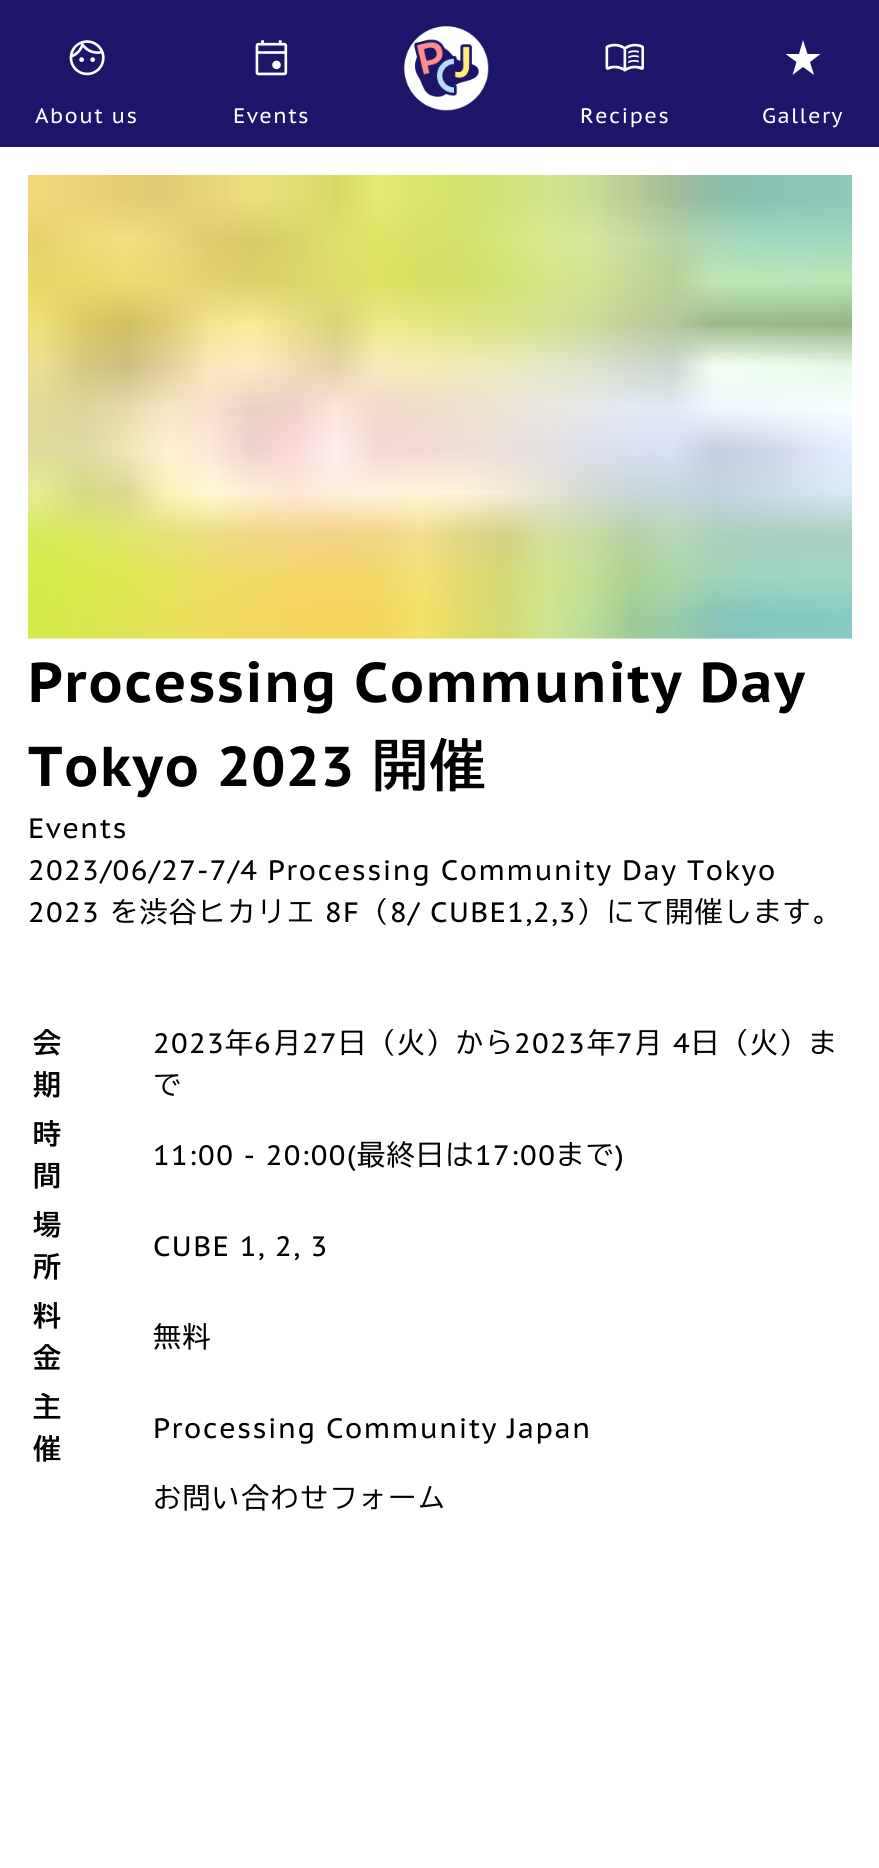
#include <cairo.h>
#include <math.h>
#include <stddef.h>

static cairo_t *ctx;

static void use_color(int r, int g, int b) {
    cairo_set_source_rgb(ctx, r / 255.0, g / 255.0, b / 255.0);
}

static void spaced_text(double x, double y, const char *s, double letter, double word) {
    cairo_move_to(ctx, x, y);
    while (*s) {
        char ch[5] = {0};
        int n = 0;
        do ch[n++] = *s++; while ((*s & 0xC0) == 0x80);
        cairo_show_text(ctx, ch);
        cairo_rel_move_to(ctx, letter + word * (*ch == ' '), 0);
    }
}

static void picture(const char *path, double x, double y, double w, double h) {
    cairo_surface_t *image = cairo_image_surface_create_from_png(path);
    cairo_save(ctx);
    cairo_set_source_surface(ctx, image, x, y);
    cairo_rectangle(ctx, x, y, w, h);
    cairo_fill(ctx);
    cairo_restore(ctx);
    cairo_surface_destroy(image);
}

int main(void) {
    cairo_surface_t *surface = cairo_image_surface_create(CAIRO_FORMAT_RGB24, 879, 1868);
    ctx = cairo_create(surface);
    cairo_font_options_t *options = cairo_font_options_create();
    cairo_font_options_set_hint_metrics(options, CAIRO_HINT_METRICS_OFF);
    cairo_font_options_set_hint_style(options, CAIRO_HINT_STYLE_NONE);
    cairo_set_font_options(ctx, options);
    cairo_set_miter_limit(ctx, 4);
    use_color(255, 255, 255);
    cairo_paint(ctx);
    use_color(29, 21, 105);
    cairo_rectangle(ctx, 0, 0, 879, 147);
    cairo_fill(ctx);
    picture("img1.png", 404, 26, 85, 85);
    picture("img2.png", 69, 40, 36, 36);
    cairo_select_font_face(ctx, "PT Sans Caption", CAIRO_FONT_SLANT_NORMAL, CAIRO_FONT_WEIGHT_NORMAL);
    cairo_set_font_size(ctx, 21);
    use_color(255, 255, 255);
    spaced_text(35, 123, "About us", 1.4, 0);
    picture("img3.png", 255, 40, 33, 36);
    spaced_text(233, 123, "Events", 1.4, 0);
    picture("img4.png", 605, 43, 40, 29);
    spaced_text(580, 123, "Recipes", 1.4, 0);
    cairo_new_path(ctx);
    cairo_move_to(ctx, 792.5, 75);
    cairo_line_to(ctx, 796.5, 62);
    cairo_line_to(ctx, 785.5, 54);
    cairo_line_to(ctx, 799, 54);
    cairo_line_to(ctx, 803, 40);
    cairo_line_to(ctx, 807.5, 54);
    cairo_line_to(ctx, 820.5, 54);
    cairo_line_to(ctx, 810, 62);
    cairo_line_to(ctx, 814, 75);
    cairo_line_to(ctx, 803, 67);
    cairo_close_path(ctx);
    cairo_fill(ctx);
    spaced_text(762, 123, "Gallery", 1.4, 0);
    picture("img5.png", 28, 175, 825, 464);
    cairo_select_font_face(ctx, "PT Sans Caption", CAIRO_FONT_SLANT_NORMAL, CAIRO_FONT_WEIGHT_BOLD);
    cairo_set_font_size(ctx, 56);
    use_color(0, 0, 0);
    spaced_text(28, 702, "Processing Community Day", 1.4, 0);
    spaced_text(28, 786, "Tokyo 2023", 1.4, 0);
    cairo_select_font_face(ctx, "BIZ UDGothic", CAIRO_FONT_SLANT_NORMAL, CAIRO_FONT_WEIGHT_BOLD);
    spaced_text(372, 786, "開催", 1.4, 0);
    cairo_select_font_face(ctx, "PT Sans Caption", CAIRO_FONT_SLANT_NORMAL, CAIRO_FONT_WEIGHT_NORMAL);
    cairo_set_font_size(ctx, 28);
    spaced_text(28, 838, "Events", 1.4, 0);
    spaced_text(28, 880, "2023/06/27-7/4 Processing Community Day Tokyo", 1.4, 0);
    spaced_text(28, 922, "2023", 1.4, 0);
    cairo_select_font_face(ctx, "BIZ UDGothic", CAIRO_FONT_SLANT_NORMAL, CAIRO_FONT_WEIGHT_NORMAL);
    spaced_text(110, 922, "を渋谷ヒカリエ", 1.4, 0);
    cairo_select_font_face(ctx, "PT Sans Caption", CAIRO_FONT_SLANT_NORMAL, CAIRO_FONT_WEIGHT_NORMAL);
    spaced_text(325, 922, "8F", 1.4, 0);
    cairo_select_font_face(ctx, "BIZ UDGothic", CAIRO_FONT_SLANT_NORMAL, CAIRO_FONT_WEIGHT_NORMAL);
    spaced_text(360, 922, "（", 1.4, 0);
    cairo_select_font_face(ctx, "PT Sans Caption", CAIRO_FONT_SLANT_NORMAL, CAIRO_FONT_WEIGHT_NORMAL);
    spaced_text(390, 922, "8/ CUBE1,2,3", 1.4, 0);
    cairo_select_font_face(ctx, "BIZ UDGothic", CAIRO_FONT_SLANT_NORMAL, CAIRO_FONT_WEIGHT_NORMAL);
    spaced_text(577, 922, "）にて開催します。", 1.4, 0);
    cairo_select_font_face(ctx, "BIZ UDGothic", CAIRO_FONT_SLANT_NORMAL, CAIRO_FONT_WEIGHT_BOLD);
    spaced_text(33, 1053, "会", 1.4, 0);
    spaced_text(33, 1095, "期", 1.4, 0);
    cairo_select_font_face(ctx, "PT Sans Caption", CAIRO_FONT_SLANT_NORMAL, CAIRO_FONT_WEIGHT_NORMAL);
    spaced_text(153, 1053, "2023", 1.4, 0);
    cairo_select_font_face(ctx, "BIZ UDGothic", CAIRO_FONT_SLANT_NORMAL, CAIRO_FONT_WEIGHT_NORMAL);
    spaced_text(225, 1053, "年", 1.4, 0);
    cairo_select_font_face(ctx, "PT Sans Caption", CAIRO_FONT_SLANT_NORMAL, CAIRO_FONT_WEIGHT_NORMAL);
    spaced_text(254, 1053, "6", 1.4, 0);
    cairo_select_font_face(ctx, "BIZ UDGothic", CAIRO_FONT_SLANT_NORMAL, CAIRO_FONT_WEIGHT_NORMAL);
    spaced_text(273, 1053, "月", 1.4, 0);
    cairo_select_font_face(ctx, "PT Sans Caption", CAIRO_FONT_SLANT_NORMAL, CAIRO_FONT_WEIGHT_NORMAL);
    spaced_text(302, 1053, "27", 1.4, 0);
    cairo_select_font_face(ctx, "BIZ UDGothic", CAIRO_FONT_SLANT_NORMAL, CAIRO_FONT_WEIGHT_NORMAL);
    spaced_text(338, 1053, "日（火）から", 1.4, 0);
    cairo_select_font_face(ctx, "PT Sans Caption", CAIRO_FONT_SLANT_NORMAL, CAIRO_FONT_WEIGHT_NORMAL);
    spaced_text(514, 1053, "2023", 1.4, 0);
    cairo_select_font_face(ctx, "BIZ UDGothic", CAIRO_FONT_SLANT_NORMAL, CAIRO_FONT_WEIGHT_NORMAL);
    spaced_text(587, 1053, "年", 1.4, 0);
    cairo_select_font_face(ctx, "PT Sans Caption", CAIRO_FONT_SLANT_NORMAL, CAIRO_FONT_WEIGHT_NORMAL);
    spaced_text(616, 1053, "7", 1.4, 0);
    cairo_select_font_face(ctx, "BIZ UDGothic", CAIRO_FONT_SLANT_NORMAL, CAIRO_FONT_WEIGHT_NORMAL);
    spaced_text(634, 1053, "月", 1.4, 0);
    cairo_select_font_face(ctx, "PT Sans Caption", CAIRO_FONT_SLANT_NORMAL, CAIRO_FONT_WEIGHT_NORMAL);
    spaced_text(673, 1053, "4", 1.4, 0);
    cairo_select_font_face(ctx, "BIZ UDGothic", CAIRO_FONT_SLANT_NORMAL, CAIRO_FONT_WEIGHT_NORMAL);
    spaced_text(691, 1053, "日（火）ま", 1.4, 0);
    spaced_text(153, 1095, "で", 1.4, 0);
    cairo_select_font_face(ctx, "BIZ UDGothic", CAIRO_FONT_SLANT_NORMAL, CAIRO_FONT_WEIGHT_BOLD);
    spaced_text(33, 1144, "時", 1.4, 0);
    spaced_text(33, 1186, "間", 1.4, 0);
    cairo_select_font_face(ctx, "PT Sans Caption", CAIRO_FONT_SLANT_NORMAL, CAIRO_FONT_WEIGHT_NORMAL);
    spaced_text(153, 1165, "11:00 - 20:00(", 1.4, 0);
    cairo_select_font_face(ctx, "BIZ UDGothic", CAIRO_FONT_SLANT_NORMAL, CAIRO_FONT_WEIGHT_NORMAL);
    spaced_text(357, 1165, "最終日は", 1.4, 0);
    cairo_select_font_face(ctx, "PT Sans Caption", CAIRO_FONT_SLANT_NORMAL, CAIRO_FONT_WEIGHT_NORMAL);
    spaced_text(475, 1165, "17:00", 1.4, 0);
    cairo_select_font_face(ctx, "BIZ UDGothic", CAIRO_FONT_SLANT_NORMAL, CAIRO_FONT_WEIGHT_NORMAL);
    spaced_text(556, 1165, "まで", 1.4, 0);
    cairo_select_font_face(ctx, "PT Sans Caption", CAIRO_FONT_SLANT_NORMAL, CAIRO_FONT_WEIGHT_NORMAL);
    spaced_text(615, 1165, ")", 1.4, 0);
    cairo_select_font_face(ctx, "BIZ UDGothic", CAIRO_FONT_SLANT_NORMAL, CAIRO_FONT_WEIGHT_BOLD);
    spaced_text(33, 1235, "場", 1.4, 0);
    spaced_text(33, 1277, "所", 1.4, 0);
    cairo_select_font_face(ctx, "PT Sans Caption", CAIRO_FONT_SLANT_NORMAL, CAIRO_FONT_WEIGHT_NORMAL);
    spaced_text(153, 1256, "CUBE 1, 2, 3", 1.4, 0);
    cairo_select_font_face(ctx, "BIZ UDGothic", CAIRO_FONT_SLANT_NORMAL, CAIRO_FONT_WEIGHT_BOLD);
    spaced_text(33, 1326, "料", 1.4, 0);
    spaced_text(33, 1368, "金", 1.4, 0);
    cairo_select_font_face(ctx, "BIZ UDGothic", CAIRO_FONT_SLANT_NORMAL, CAIRO_FONT_WEIGHT_NORMAL);
    spaced_text(153, 1347, "無料", 1.4, 0);
    cairo_select_font_face(ctx, "BIZ UDGothic", CAIRO_FONT_SLANT_NORMAL, CAIRO_FONT_WEIGHT_BOLD);
    spaced_text(33, 1417, "主", 1.4, 0);
    spaced_text(33, 1459, "催", 1.4, 0);
    cairo_select_font_face(ctx, "PT Sans Caption", CAIRO_FONT_SLANT_NORMAL, CAIRO_FONT_WEIGHT_NORMAL);
    spaced_text(153, 1438, "Processing Community Japan", 1.4, 0);
    cairo_select_font_face(ctx, "BIZ UDGothic", CAIRO_FONT_SLANT_NORMAL, CAIRO_FONT_WEIGHT_NORMAL);
    spaced_text(153, 1508, "お問い合わせフォーム", 1.4, 0);
    cairo_surface_write_to_png(surface, "result.png");
    cairo_font_options_destroy(options);
    cairo_destroy(ctx);
    cairo_surface_destroy(surface);
    return 0;
}
